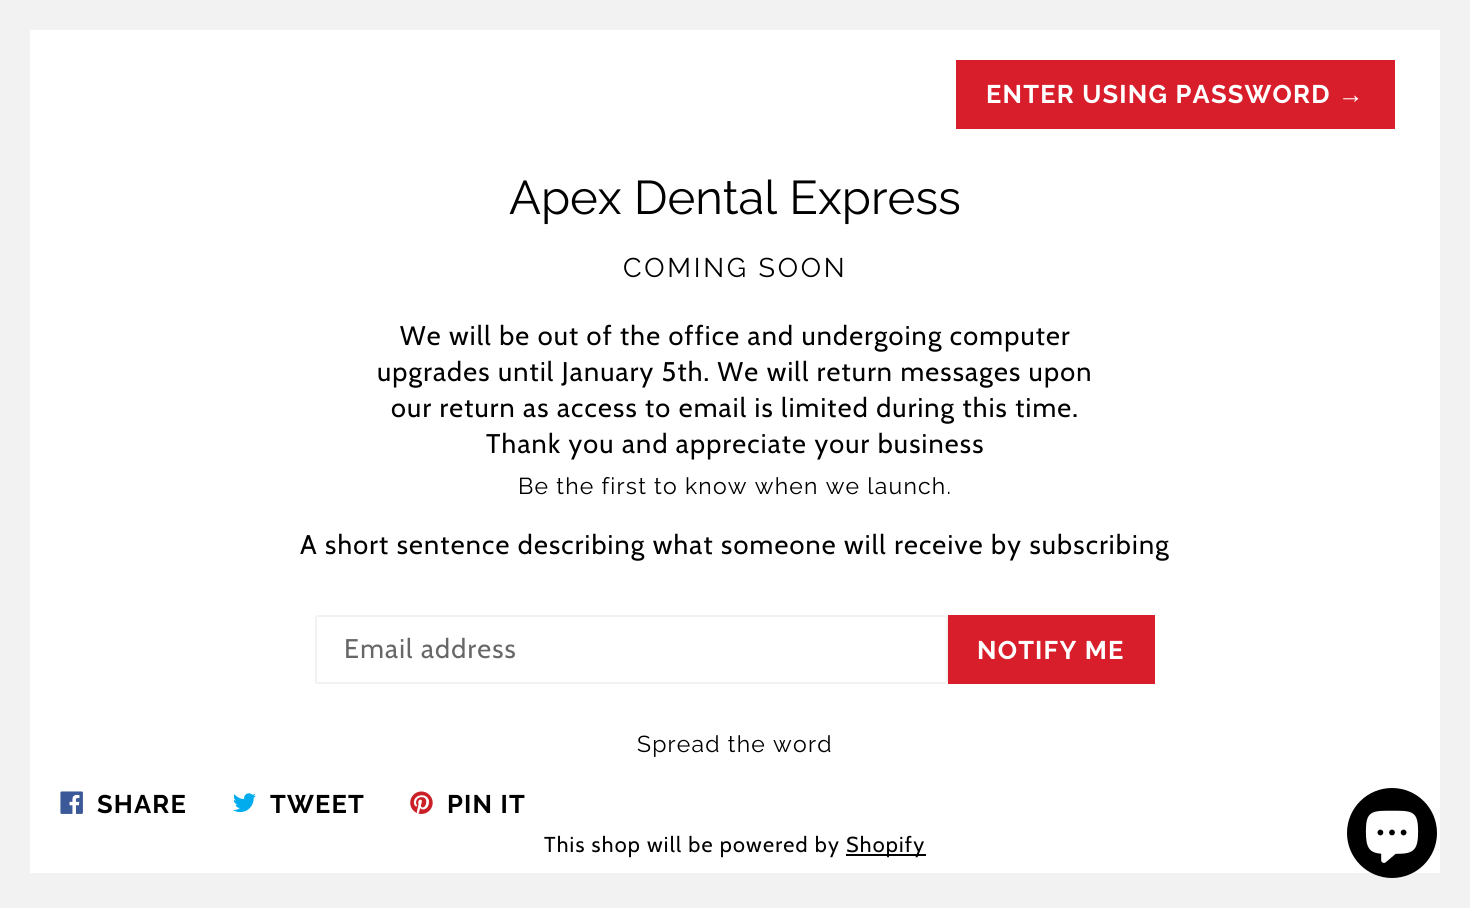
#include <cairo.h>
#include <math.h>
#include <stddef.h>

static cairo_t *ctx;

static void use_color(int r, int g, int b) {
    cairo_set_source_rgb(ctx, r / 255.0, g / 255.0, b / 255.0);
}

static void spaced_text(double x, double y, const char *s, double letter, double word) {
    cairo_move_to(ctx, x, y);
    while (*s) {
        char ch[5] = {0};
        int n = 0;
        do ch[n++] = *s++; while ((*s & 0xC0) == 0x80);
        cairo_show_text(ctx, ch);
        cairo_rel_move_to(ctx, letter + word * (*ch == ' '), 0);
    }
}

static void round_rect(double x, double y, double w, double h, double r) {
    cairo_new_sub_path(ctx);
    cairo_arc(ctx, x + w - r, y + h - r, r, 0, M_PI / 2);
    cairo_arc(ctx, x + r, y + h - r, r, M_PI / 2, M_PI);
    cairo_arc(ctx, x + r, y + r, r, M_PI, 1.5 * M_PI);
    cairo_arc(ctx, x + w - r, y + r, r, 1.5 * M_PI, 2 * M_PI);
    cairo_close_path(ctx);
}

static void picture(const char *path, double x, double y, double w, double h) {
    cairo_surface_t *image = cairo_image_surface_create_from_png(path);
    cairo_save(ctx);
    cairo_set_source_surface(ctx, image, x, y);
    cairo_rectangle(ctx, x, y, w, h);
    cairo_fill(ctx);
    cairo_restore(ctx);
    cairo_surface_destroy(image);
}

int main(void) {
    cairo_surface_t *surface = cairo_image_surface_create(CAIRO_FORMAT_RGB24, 1470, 908);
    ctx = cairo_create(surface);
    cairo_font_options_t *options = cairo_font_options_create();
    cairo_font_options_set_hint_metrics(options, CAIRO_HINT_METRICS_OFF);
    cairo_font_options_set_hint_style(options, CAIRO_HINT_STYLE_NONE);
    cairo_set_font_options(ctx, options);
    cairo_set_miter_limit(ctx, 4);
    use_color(242, 242, 242);
    cairo_paint(ctx);
    use_color(255, 255, 255);
    cairo_rectangle(ctx, 30, 30, 1410, 843);
    cairo_fill(ctx);
    use_color(216, 30, 43);
    cairo_rectangle(ctx, 956, 60, 439, 69);
    cairo_fill(ctx);
    cairo_select_font_face(ctx, "Raleway", CAIRO_FONT_SLANT_NORMAL, CAIRO_FONT_WEIGHT_BOLD);
    cairo_set_font_size(ctx, 25.5);
    use_color(255, 255, 255);
    spaced_text(986, 103, "ENTER USING PASSWORD", 1.2, 0);
    cairo_select_font_face(ctx, "Liberation Sans", CAIRO_FONT_SLANT_NORMAL, CAIRO_FONT_WEIGHT_BOLD);
    spaced_text(1338, 103, "→", 1.2, 0);
    cairo_select_font_face(ctx, "Raleway", CAIRO_FONT_SLANT_NORMAL, CAIRO_FONT_WEIGHT_NORMAL);
    cairo_set_font_size(ctx, 47.25);
    use_color(0, 0, 0);
    cairo_move_to(ctx, 509, 214);
    cairo_show_text(ctx, "Apex Dental Express");
    cairo_set_font_size(ctx, 27);
    spaced_text(623, 277, "COMING SOON", 2.75, 0);
    cairo_select_font_face(ctx, "Cabin", CAIRO_FONT_SLANT_NORMAL, CAIRO_FONT_WEIGHT_NORMAL);
    spaced_text(400, 345, "We will be out of the office and undergoing computer", 1.2, 0);
    spaced_text(377, 381, "upgrades until January 5th. We will return messages upon", 1.2, 0);
    spaced_text(391, 417, "our return as access to email is limited during this time.", 1.2, 0);
    spaced_text(486, 453, "Thank you and appreciate your business", 1.2, 0);
    cairo_select_font_face(ctx, "Raleway", CAIRO_FONT_SLANT_NORMAL, CAIRO_FONT_WEIGHT_NORMAL);
    cairo_set_font_size(ctx, 23);
    spaced_text(518, 494, "Be the first to know when we launch.", 1.2, 0);
    cairo_select_font_face(ctx, "Cabin", CAIRO_FONT_SLANT_NORMAL, CAIRO_FONT_WEIGHT_NORMAL);
    cairo_set_font_size(ctx, 27);
    spaced_text(300, 554, "A short sentence describing what someone will receive by subscribing", 1.2, 0);
    round_rect(316, 616, 631, 67, 2);
    use_color(242, 242, 242);
    cairo_stroke(ctx);
    use_color(103, 103, 103);
    spaced_text(344, 658, "Email address", 1.2, 0);
    use_color(216, 30, 43);
    cairo_rectangle(ctx, 948, 615, 207, 69);
    cairo_fill(ctx);
    cairo_select_font_face(ctx, "Raleway", CAIRO_FONT_SLANT_NORMAL, CAIRO_FONT_WEIGHT_BOLD);
    cairo_set_font_size(ctx, 25.5);
    use_color(255, 255, 255);
    spaced_text(977, 659, "NOTIFY ME", 1.2, 0);
    cairo_select_font_face(ctx, "Raleway", CAIRO_FONT_SLANT_NORMAL, CAIRO_FONT_WEIGHT_NORMAL);
    cairo_set_font_size(ctx, 23);
    use_color(0, 0, 0);
    spaced_text(637, 752, "Spread the word", 1.2, 0);
    picture("img1.png", 60, 791, 23, 23);
    cairo_select_font_face(ctx, "Raleway", CAIRO_FONT_SLANT_NORMAL, CAIRO_FONT_WEIGHT_BOLD);
    cairo_set_font_size(ctx, 25.5);
    spaced_text(97, 813, "SHARE", 1.2, 0);
    picture("img2.png", 233, 793, 23, 20);
    spaced_text(270, 813, "TWEET", 1.2, 0);
    picture("img3.png", 410, 791, 23, 23);
    spaced_text(447, 813, "PIN IT", 1.2, 0);
    cairo_select_font_face(ctx, "Cabin", CAIRO_FONT_SLANT_NORMAL, CAIRO_FONT_WEIGHT_NORMAL);
    cairo_set_font_size(ctx, 21.6);
    spaced_text(544, 852, "This shop will be powered by", 1.2, 0);
    use_color(1, 1, 1);
    cairo_rectangle(ctx, 846, 854, 80, 2);
    cairo_fill(ctx);
    use_color(0, 0, 0);
    spaced_text(846, 852, "Shopify", 1.2, 0);
    cairo_new_path(ctx);
    cairo_arc(ctx, 1392, 833, 45, 0, 2 * M_PI);
    cairo_fill(ctx);
    picture("img4.png", 1365, 810, 54, 53);
    cairo_surface_write_to_png(surface, "result.png");
    cairo_font_options_destroy(options);
    cairo_destroy(ctx);
    cairo_surface_destroy(surface);
    return 0;
}
